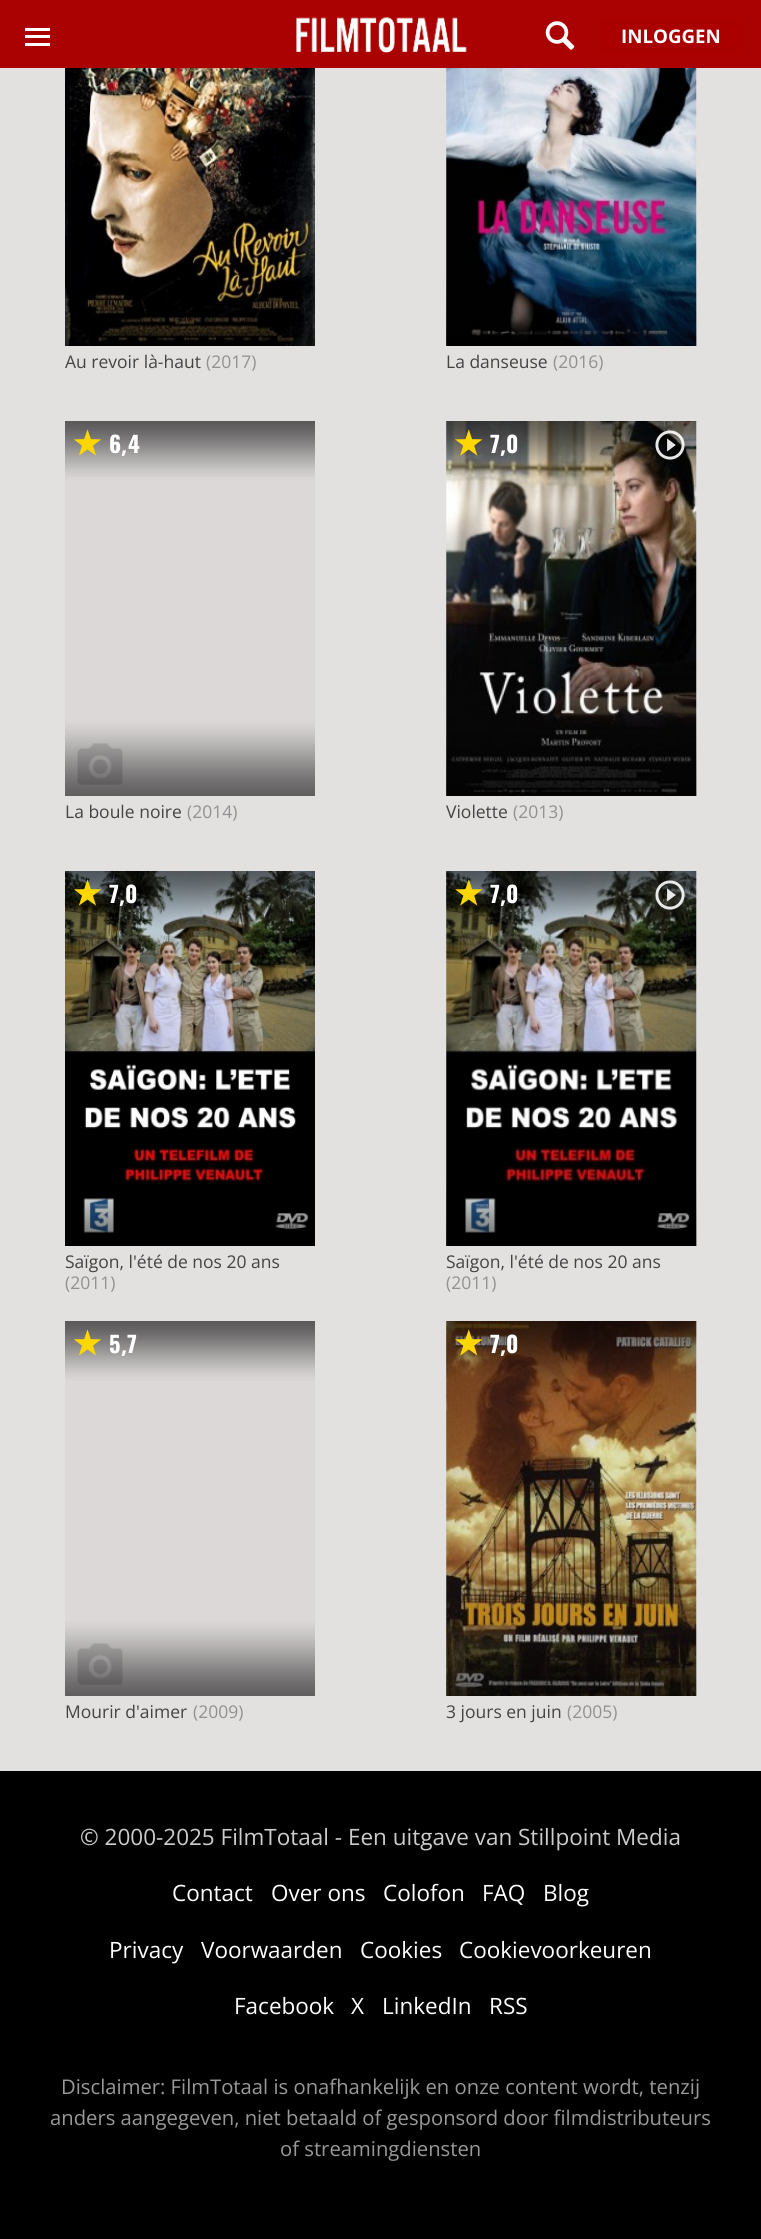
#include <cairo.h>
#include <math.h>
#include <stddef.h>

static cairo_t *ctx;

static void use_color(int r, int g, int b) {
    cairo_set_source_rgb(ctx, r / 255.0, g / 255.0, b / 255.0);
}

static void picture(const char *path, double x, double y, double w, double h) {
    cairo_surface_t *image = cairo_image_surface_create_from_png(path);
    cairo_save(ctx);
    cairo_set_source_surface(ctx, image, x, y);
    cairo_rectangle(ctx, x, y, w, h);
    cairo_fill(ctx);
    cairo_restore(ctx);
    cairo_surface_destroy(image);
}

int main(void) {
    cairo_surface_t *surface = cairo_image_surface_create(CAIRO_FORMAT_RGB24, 761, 2239);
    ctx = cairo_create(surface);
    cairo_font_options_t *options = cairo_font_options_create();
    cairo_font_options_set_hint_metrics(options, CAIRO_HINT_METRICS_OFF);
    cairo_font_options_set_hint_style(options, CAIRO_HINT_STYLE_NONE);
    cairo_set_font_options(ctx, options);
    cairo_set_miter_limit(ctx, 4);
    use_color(227, 224, 224);
    cairo_paint(ctx);
    use_color(170, 2, 3);
    cairo_rectangle(ctx, 0, 0, 761, 68);
    cairo_fill(ctx);
    use_color(255, 255, 255);
    cairo_rectangle(ctx, 25, 35, 25, 3);
    cairo_fill(ctx);
    cairo_rectangle(ctx, 25, 28, 25, 3);
    cairo_fill(ctx);
    cairo_rectangle(ctx, 25, 43, 25, 3);
    cairo_fill(ctx);
    picture("img1.png", 296, 17, 171, 36);
    picture("img2.png", 545, 21, 30, 29);
    use_color(170, 0, 0);
    cairo_rectangle(ctx, 600, 19, 143, 34);
    cairo_fill(ctx);
    cairo_select_font_face(ctx, "Open Sans", CAIRO_FONT_SLANT_NORMAL, CAIRO_FONT_WEIGHT_BOLD);
    cairo_set_font_size(ctx, 18.75);
    use_color(255, 255, 255);
    cairo_move_to(ctx, 621, 43);
    cairo_show_text(ctx, "INLOGGEN");
    picture("img3.png", 65, 68, 250, 278);
    picture("img4.png", 65, 274, 250, 72);
    cairo_select_font_face(ctx, "Open Sans", CAIRO_FONT_SLANT_NORMAL, CAIRO_FONT_WEIGHT_NORMAL);
    cairo_set_font_size(ctx, 17.5);
    use_color(68, 68, 68);
    cairo_move_to(ctx, 65, 368);
    cairo_show_text(ctx, "Au revoir là-haut");
    use_color(145, 145, 145);
    cairo_move_to(ctx, 206, 368);
    cairo_show_text(ctx, "(2017)");
    picture("img5.png", 446, 68, 251, 278);
    picture("img6.png", 446, 274, 251, 72);
    use_color(68, 68, 68);
    cairo_move_to(ctx, 446, 368);
    cairo_show_text(ctx, "La danseuse");
    use_color(145, 145, 145);
    cairo_move_to(ctx, 553, 368);
    cairo_show_text(ctx, "(2016)");
    picture("img7.png", 65, 421, 250, 375);
    picture("img8.png", 65, 421, 250, 375);
    picture("img9.png", 74, 429, 27, 27);
    cairo_select_font_face(ctx, "Oswald", CAIRO_FONT_SLANT_NORMAL, CAIRO_FONT_WEIGHT_BOLD);
    cairo_set_font_size(ctx, 22.5);
    use_color(255, 255, 255);
    cairo_move_to(ctx, 109, 453);
    cairo_show_text(ctx, "6");
    cairo_select_font_face(ctx, "Open Sans", CAIRO_FONT_SLANT_NORMAL, CAIRO_FONT_WEIGHT_BOLD);
    cairo_move_to(ctx, 121, 453);
    cairo_show_text(ctx, ",");
    cairo_select_font_face(ctx, "Oswald", CAIRO_FONT_SLANT_NORMAL, CAIRO_FONT_WEIGHT_BOLD);
    cairo_move_to(ctx, 128, 453);
    cairo_show_text(ctx, "4");
    cairo_select_font_face(ctx, "Open Sans", CAIRO_FONT_SLANT_NORMAL, CAIRO_FONT_WEIGHT_NORMAL);
    cairo_set_font_size(ctx, 17.5);
    use_color(68, 68, 68);
    cairo_move_to(ctx, 65, 818);
    cairo_show_text(ctx, "La boule noire");
    use_color(145, 145, 145);
    cairo_move_to(ctx, 187, 818);
    cairo_show_text(ctx, "(2014)");
    picture("img10.png", 446, 421, 251, 375);
    picture("img11.png", 446, 421, 251, 375);
    picture("img12.png", 455, 429, 28, 27);
    cairo_select_font_face(ctx, "Oswald", CAIRO_FONT_SLANT_NORMAL, CAIRO_FONT_WEIGHT_BOLD);
    cairo_set_font_size(ctx, 22.5);
    use_color(255, 255, 255);
    cairo_move_to(ctx, 490, 453);
    cairo_show_text(ctx, "7");
    cairo_select_font_face(ctx, "Open Sans", CAIRO_FONT_SLANT_NORMAL, CAIRO_FONT_WEIGHT_BOLD);
    cairo_move_to(ctx, 500, 453);
    cairo_show_text(ctx, ",");
    cairo_select_font_face(ctx, "Oswald", CAIRO_FONT_SLANT_NORMAL, CAIRO_FONT_WEIGHT_BOLD);
    cairo_move_to(ctx, 506, 453);
    cairo_show_text(ctx, "0");
    picture("img13.png", 655, 430, 30, 30);
    cairo_select_font_face(ctx, "Open Sans", CAIRO_FONT_SLANT_NORMAL, CAIRO_FONT_WEIGHT_NORMAL);
    cairo_set_font_size(ctx, 17.5);
    use_color(68, 68, 68);
    cairo_move_to(ctx, 446, 818);
    cairo_show_text(ctx, "Violette");
    use_color(145, 145, 145);
    cairo_move_to(ctx, 513, 818);
    cairo_show_text(ctx, "(2013)");
    picture("img14.png", 65, 871, 250, 375);
    picture("img15.png", 65, 871, 250, 362);
    picture("img16.png", 74, 879, 27, 27);
    cairo_select_font_face(ctx, "Oswald", CAIRO_FONT_SLANT_NORMAL, CAIRO_FONT_WEIGHT_BOLD);
    cairo_set_font_size(ctx, 22.5);
    use_color(255, 255, 255);
    cairo_move_to(ctx, 109, 903);
    cairo_show_text(ctx, "7");
    cairo_select_font_face(ctx, "Open Sans", CAIRO_FONT_SLANT_NORMAL, CAIRO_FONT_WEIGHT_BOLD);
    cairo_move_to(ctx, 119, 903);
    cairo_show_text(ctx, ",");
    cairo_select_font_face(ctx, "Oswald", CAIRO_FONT_SLANT_NORMAL, CAIRO_FONT_WEIGHT_BOLD);
    cairo_move_to(ctx, 125, 903);
    cairo_show_text(ctx, "0");
    cairo_select_font_face(ctx, "Open Sans", CAIRO_FONT_SLANT_NORMAL, CAIRO_FONT_WEIGHT_NORMAL);
    cairo_set_font_size(ctx, 17.5);
    use_color(68, 68, 68);
    cairo_move_to(ctx, 65, 1268);
    cairo_show_text(ctx, "Saïgon, l'été de nos 20 ans");
    use_color(145, 145, 145);
    cairo_move_to(ctx, 65, 1289);
    cairo_show_text(ctx, "(2011)");
    picture("img17.png", 446, 871, 251, 375);
    picture("img18.png", 446, 871, 251, 375);
    picture("img19.png", 455, 879, 28, 27);
    cairo_select_font_face(ctx, "Oswald", CAIRO_FONT_SLANT_NORMAL, CAIRO_FONT_WEIGHT_BOLD);
    cairo_set_font_size(ctx, 22.5);
    use_color(255, 255, 255);
    cairo_move_to(ctx, 490, 903);
    cairo_show_text(ctx, "7");
    cairo_select_font_face(ctx, "Open Sans", CAIRO_FONT_SLANT_NORMAL, CAIRO_FONT_WEIGHT_BOLD);
    cairo_move_to(ctx, 500, 903);
    cairo_show_text(ctx, ",");
    cairo_select_font_face(ctx, "Oswald", CAIRO_FONT_SLANT_NORMAL, CAIRO_FONT_WEIGHT_BOLD);
    cairo_move_to(ctx, 506, 903);
    cairo_show_text(ctx, "0");
    picture("img20.png", 655, 880, 30, 30);
    cairo_select_font_face(ctx, "Open Sans", CAIRO_FONT_SLANT_NORMAL, CAIRO_FONT_WEIGHT_NORMAL);
    cairo_set_font_size(ctx, 17.5);
    use_color(68, 68, 68);
    cairo_move_to(ctx, 446, 1268);
    cairo_show_text(ctx, "Saïgon, l'été de nos 20 ans");
    use_color(145, 145, 145);
    cairo_move_to(ctx, 446, 1289);
    cairo_show_text(ctx, "(2011)");
    picture("img7.png", 65, 1321, 250, 375);
    picture("img8.png", 65, 1321, 250, 375);
    picture("img9.png", 74, 1329, 27, 27);
    cairo_select_font_face(ctx, "Oswald", CAIRO_FONT_SLANT_NORMAL, CAIRO_FONT_WEIGHT_BOLD);
    cairo_set_font_size(ctx, 22.5);
    use_color(255, 255, 255);
    cairo_move_to(ctx, 109, 1353);
    cairo_show_text(ctx, "5");
    cairo_select_font_face(ctx, "Open Sans", CAIRO_FONT_SLANT_NORMAL, CAIRO_FONT_WEIGHT_BOLD);
    cairo_move_to(ctx, 121, 1353);
    cairo_show_text(ctx, ",");
    cairo_select_font_face(ctx, "Oswald", CAIRO_FONT_SLANT_NORMAL, CAIRO_FONT_WEIGHT_BOLD);
    cairo_move_to(ctx, 127, 1353);
    cairo_show_text(ctx, "7");
    cairo_select_font_face(ctx, "Open Sans", CAIRO_FONT_SLANT_NORMAL, CAIRO_FONT_WEIGHT_NORMAL);
    cairo_set_font_size(ctx, 17.5);
    use_color(68, 68, 68);
    cairo_move_to(ctx, 65, 1718);
    cairo_show_text(ctx, "Mourir d'aimer");
    use_color(145, 145, 145);
    cairo_move_to(ctx, 193, 1718);
    cairo_show_text(ctx, "(2009)");
    picture("img21.png", 446, 1321, 251, 375);
    picture("img22.png", 446, 1321, 251, 375);
    picture("img23.png", 455, 1329, 28, 27);
    cairo_select_font_face(ctx, "Oswald", CAIRO_FONT_SLANT_NORMAL, CAIRO_FONT_WEIGHT_BOLD);
    cairo_set_font_size(ctx, 22.5);
    use_color(255, 255, 255);
    cairo_move_to(ctx, 490, 1353);
    cairo_show_text(ctx, "7");
    cairo_select_font_face(ctx, "Open Sans", CAIRO_FONT_SLANT_NORMAL, CAIRO_FONT_WEIGHT_BOLD);
    cairo_move_to(ctx, 500, 1353);
    cairo_show_text(ctx, ",");
    cairo_select_font_face(ctx, "Oswald", CAIRO_FONT_SLANT_NORMAL, CAIRO_FONT_WEIGHT_BOLD);
    cairo_move_to(ctx, 506, 1353);
    cairo_show_text(ctx, "0");
    cairo_select_font_face(ctx, "Open Sans", CAIRO_FONT_SLANT_NORMAL, CAIRO_FONT_WEIGHT_NORMAL);
    cairo_set_font_size(ctx, 17.5);
    use_color(68, 68, 68);
    cairo_move_to(ctx, 446, 1718);
    cairo_show_text(ctx, "3 jours en juin");
    use_color(145, 145, 145);
    cairo_move_to(ctx, 567, 1718);
    cairo_show_text(ctx, "(2005)");
    use_color(0, 0, 0);
    cairo_rectangle(ctx, 0, 1771, 761, 468);
    cairo_fill(ctx);
    cairo_set_font_size(ctx, 22.5);
    use_color(204, 204, 204);
    cairo_move_to(ctx, 80, 1845);
    cairo_show_text(ctx, "© 2000-2025 FilmTotaal - Een uitgave van Stillpoint Media");
    use_color(255, 255, 255);
    cairo_move_to(ctx, 172, 1901);
    cairo_show_text(ctx, "Contact");
    cairo_move_to(ctx, 271, 1901);
    cairo_show_text(ctx, "Over ons");
    cairo_move_to(ctx, 383, 1901);
    cairo_show_text(ctx, "Colofon");
    cairo_move_to(ctx, 482, 1901);
    cairo_show_text(ctx, "FAQ");
    cairo_move_to(ctx, 543, 1901);
    cairo_show_text(ctx, "Blog");
    cairo_move_to(ctx, 109, 1958);
    cairo_show_text(ctx, "Privacy");
    cairo_move_to(ctx, 201, 1958);
    cairo_show_text(ctx, "Voorwaarden");
    cairo_move_to(ctx, 360, 1958);
    cairo_show_text(ctx, "Cookies");
    cairo_move_to(ctx, 459, 1958);
    cairo_show_text(ctx, "Cookievoorkeuren");
    cairo_move_to(ctx, 234, 2014);
    cairo_show_text(ctx, "Facebook");
    cairo_move_to(ctx, 351, 2014);
    cairo_show_text(ctx, "X");
    cairo_move_to(ctx, 382, 2014);
    cairo_show_text(ctx, "LinkedIn");
    cairo_move_to(ctx, 489, 2014);
    cairo_show_text(ctx, "RSS");
    cairo_set_font_size(ctx, 20.25);
    use_color(153, 153, 153);
    cairo_move_to(ctx, 61, 2094);
    cairo_show_text(ctx, "Disclaimer: FilmTotaal is onafhankelijk en onze content wordt, tenzij");
    cairo_move_to(ctx, 50, 2125);
    cairo_show_text(ctx, "anders aangegeven, niet betaald of gesponsord door filmdistributeurs");
    cairo_move_to(ctx, 280, 2156);
    cairo_show_text(ctx, "of streamingdiensten");
    cairo_surface_write_to_png(surface, "result.png");
    cairo_font_options_destroy(options);
    cairo_destroy(ctx);
    cairo_surface_destroy(surface);
    return 0;
}
